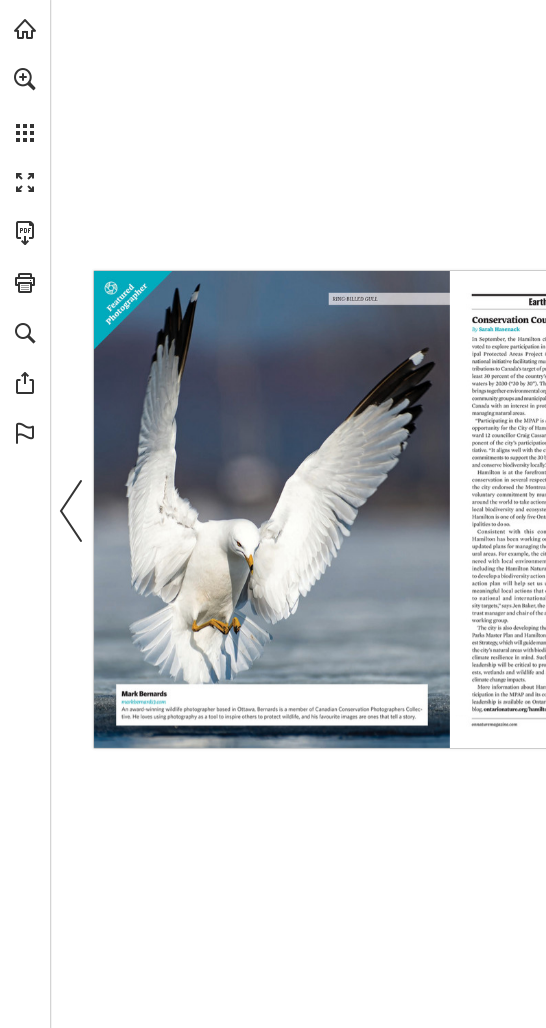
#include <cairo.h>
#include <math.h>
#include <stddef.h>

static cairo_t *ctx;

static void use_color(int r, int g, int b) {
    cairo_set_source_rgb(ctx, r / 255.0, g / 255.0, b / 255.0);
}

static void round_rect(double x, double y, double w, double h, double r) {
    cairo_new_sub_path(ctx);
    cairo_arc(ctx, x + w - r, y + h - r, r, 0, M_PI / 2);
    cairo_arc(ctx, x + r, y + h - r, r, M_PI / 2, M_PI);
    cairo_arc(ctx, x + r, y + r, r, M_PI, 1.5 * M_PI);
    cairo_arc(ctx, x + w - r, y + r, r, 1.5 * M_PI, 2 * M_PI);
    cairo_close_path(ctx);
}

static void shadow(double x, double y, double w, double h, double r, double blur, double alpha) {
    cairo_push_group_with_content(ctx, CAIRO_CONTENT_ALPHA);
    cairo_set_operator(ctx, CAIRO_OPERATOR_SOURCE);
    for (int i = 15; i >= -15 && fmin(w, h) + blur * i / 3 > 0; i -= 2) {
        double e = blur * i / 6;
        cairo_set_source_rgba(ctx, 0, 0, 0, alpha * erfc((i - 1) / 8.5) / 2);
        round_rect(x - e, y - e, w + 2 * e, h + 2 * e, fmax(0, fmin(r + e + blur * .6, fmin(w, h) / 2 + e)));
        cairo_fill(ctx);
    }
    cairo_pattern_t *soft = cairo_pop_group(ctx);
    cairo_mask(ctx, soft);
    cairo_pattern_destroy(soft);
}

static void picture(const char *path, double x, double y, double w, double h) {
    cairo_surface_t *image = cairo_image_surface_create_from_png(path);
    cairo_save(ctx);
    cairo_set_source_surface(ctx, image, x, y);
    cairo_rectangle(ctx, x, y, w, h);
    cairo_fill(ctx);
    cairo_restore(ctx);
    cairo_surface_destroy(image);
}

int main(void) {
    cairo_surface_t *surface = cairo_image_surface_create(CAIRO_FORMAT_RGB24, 546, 1028);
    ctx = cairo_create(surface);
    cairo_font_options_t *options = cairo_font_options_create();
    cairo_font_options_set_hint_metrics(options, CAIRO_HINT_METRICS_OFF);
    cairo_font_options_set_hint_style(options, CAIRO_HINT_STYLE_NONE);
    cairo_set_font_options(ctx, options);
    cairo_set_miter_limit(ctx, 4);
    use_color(255, 255, 255);
    cairo_paint(ctx);
    use_color(0, 0, 0);
    shadow(1, 0, 50, 1028, 0, 0.5, 0.2);
    use_color(255, 255, 255);
    cairo_rectangle(ctx, 0, 0, 50, 1028);
    cairo_fill(ctx);
    picture("img1.png", 14, 19, 22, 20);
    picture("img2.png", 14, 68, 22, 23);
    picture("img3.png", 16, 124, 18, 18);
    picture("img4.png", 16, 173, 18, 19);
    picture("img5.png", 16, 221, 18, 24);
    picture("img6.png", 15, 273, 20, 20);
    picture("img7.png", 15, 323, 21, 21);
    picture("img8.png", 16, 372, 18, 22);
    picture("img9.png", 16, 422, 18, 22);
    use_color(18, 18, 18);
    shadow(92, 269, 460, 481, 3, 1, 0.05);
    use_color(255, 255, 255);
    round_rect(93.5, 270.5, 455, 478, 1.5);
    cairo_fill_preserve(ctx);
    use_color(204, 204, 204);
    cairo_set_line_width(ctx, 1);
    cairo_stroke(ctx);
    picture("img10.png", 59, 480, 23, 62);
    picture("img11.png", 94, 271, 350, 477);
    picture("img12.png", 94, 271, 356, 477);
    picture("img13.png", 450, 271, 96, 444);
    picture("img14.png", 450, 715, 96, 13);
    cairo_surface_write_to_png(surface, "result.png");
    cairo_font_options_destroy(options);
    cairo_destroy(ctx);
    cairo_surface_destroy(surface);
    return 0;
}
